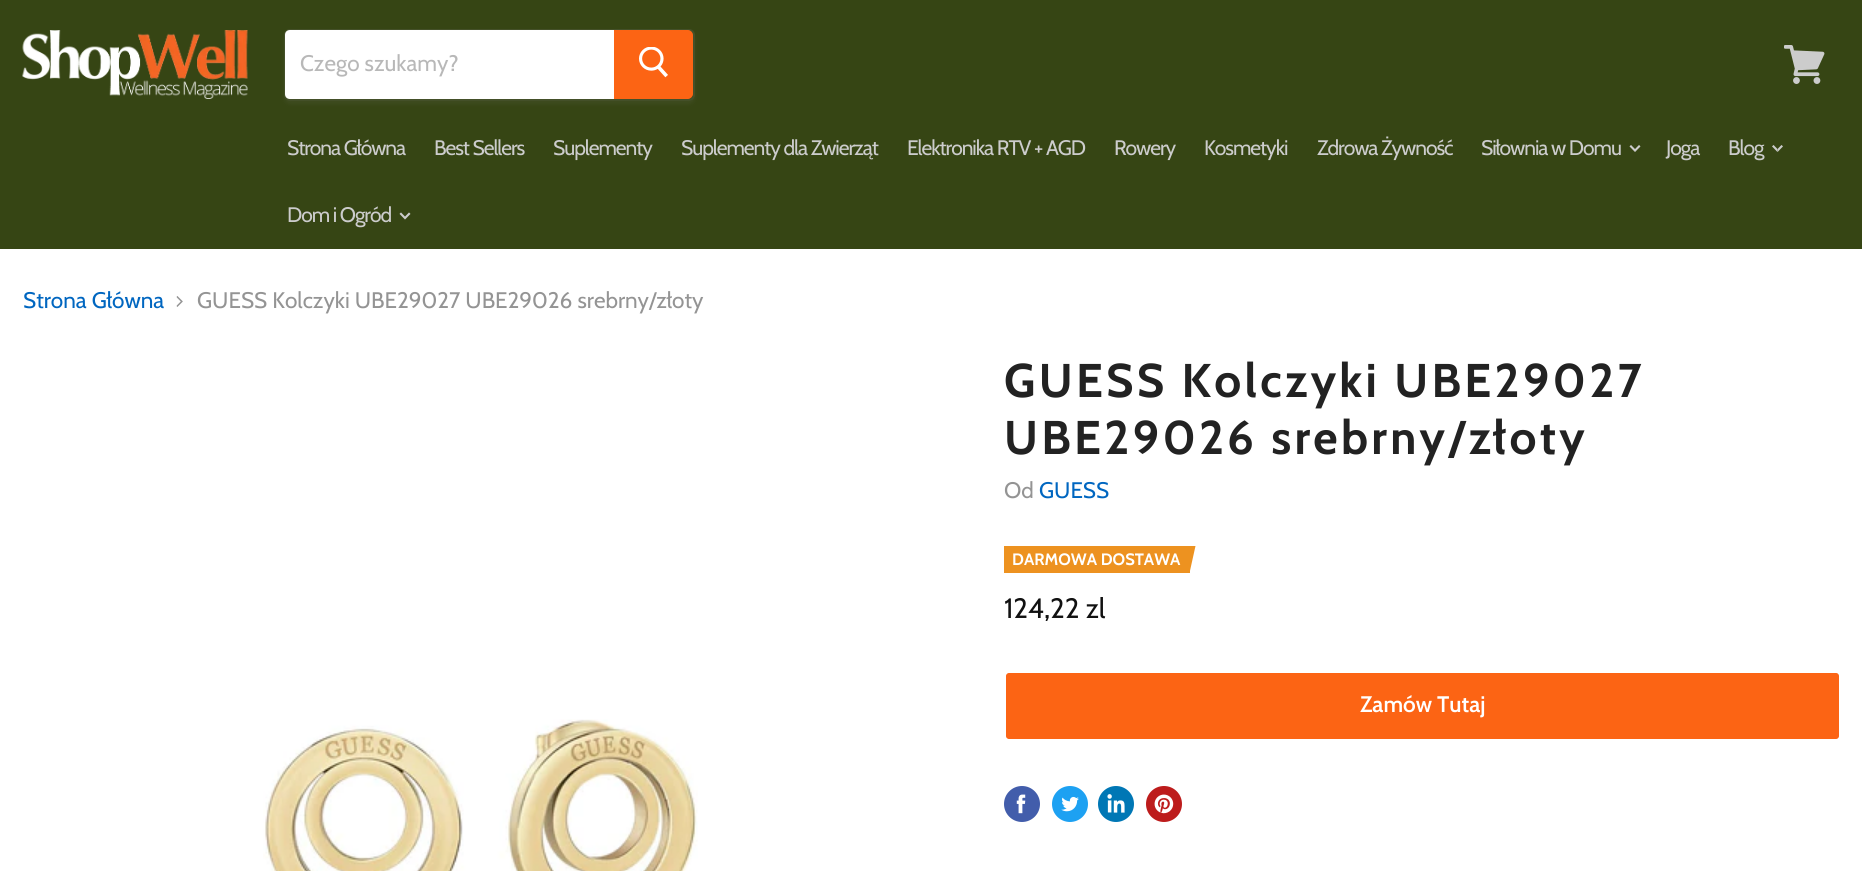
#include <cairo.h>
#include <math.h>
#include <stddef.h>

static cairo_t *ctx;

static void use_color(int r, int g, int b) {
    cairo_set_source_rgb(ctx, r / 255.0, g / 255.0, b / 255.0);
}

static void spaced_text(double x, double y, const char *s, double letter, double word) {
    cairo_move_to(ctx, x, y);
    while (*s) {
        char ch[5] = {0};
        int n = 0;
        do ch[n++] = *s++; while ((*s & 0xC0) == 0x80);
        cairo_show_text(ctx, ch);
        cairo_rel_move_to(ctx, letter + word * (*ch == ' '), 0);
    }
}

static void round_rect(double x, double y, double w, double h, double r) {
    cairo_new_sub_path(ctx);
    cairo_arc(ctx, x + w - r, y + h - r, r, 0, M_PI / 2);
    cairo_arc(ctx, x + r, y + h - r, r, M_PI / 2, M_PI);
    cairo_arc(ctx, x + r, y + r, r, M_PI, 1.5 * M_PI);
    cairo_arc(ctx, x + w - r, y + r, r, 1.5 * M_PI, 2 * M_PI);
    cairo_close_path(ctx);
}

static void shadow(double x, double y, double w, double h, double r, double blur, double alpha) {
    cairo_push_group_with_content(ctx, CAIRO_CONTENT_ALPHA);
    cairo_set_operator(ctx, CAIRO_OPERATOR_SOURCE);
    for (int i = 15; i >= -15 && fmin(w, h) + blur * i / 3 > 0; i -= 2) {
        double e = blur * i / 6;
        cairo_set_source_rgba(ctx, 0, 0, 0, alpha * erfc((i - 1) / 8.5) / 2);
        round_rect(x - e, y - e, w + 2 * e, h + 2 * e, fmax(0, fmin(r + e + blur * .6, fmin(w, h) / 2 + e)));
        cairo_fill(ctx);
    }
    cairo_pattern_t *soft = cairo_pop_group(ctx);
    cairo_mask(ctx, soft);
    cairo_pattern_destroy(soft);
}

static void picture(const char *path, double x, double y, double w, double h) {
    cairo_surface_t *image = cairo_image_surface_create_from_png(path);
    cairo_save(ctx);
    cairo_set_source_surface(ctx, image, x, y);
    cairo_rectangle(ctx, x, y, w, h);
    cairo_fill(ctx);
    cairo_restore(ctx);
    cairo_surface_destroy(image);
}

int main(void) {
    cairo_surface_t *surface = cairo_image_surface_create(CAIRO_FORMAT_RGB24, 1862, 871);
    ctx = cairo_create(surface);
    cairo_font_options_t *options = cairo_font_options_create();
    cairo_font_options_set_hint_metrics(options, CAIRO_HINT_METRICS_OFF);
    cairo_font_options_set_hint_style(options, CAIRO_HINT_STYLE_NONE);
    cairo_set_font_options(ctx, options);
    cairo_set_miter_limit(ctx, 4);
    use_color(255, 255, 255);
    cairo_paint(ctx);
    use_color(54, 69, 20);
    cairo_rectangle(ctx, 0, 0, 1862, 249);
    cairo_fill(ctx);
    picture("img1.png", 22, 30, 226, 69);
    cairo_save(ctx);
    cairo_set_fill_rule(ctx, CAIRO_FILL_RULE_EVEN_ODD);
    cairo_new_path(ctx);
    cairo_move_to(ctx, 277, 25);
    cairo_line_to(ctx, 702, 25);
    cairo_line_to(ctx, 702, 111);
    cairo_line_to(ctx, 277, 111);
    cairo_close_path(ctx);
    cairo_move_to(ctx, 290, 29);
    cairo_line_to(ctx, 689, 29);
    cairo_curve_to(ctx, 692.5, 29, 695, 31.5, 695, 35);
    cairo_line_to(ctx, 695, 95);
    cairo_curve_to(ctx, 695, 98.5, 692.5, 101, 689, 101);
    cairo_line_to(ctx, 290, 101);
    cairo_curve_to(ctx, 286.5, 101, 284, 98.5, 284, 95);
    cairo_line_to(ctx, 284, 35);
    cairo_curve_to(ctx, 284, 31.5, 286.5, 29, 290, 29);
    cairo_close_path(ctx);
    cairo_clip(ctx);
    use_color(127, 127, 127);
    shadow(284, 32, 411, 72, 6, 2, 0.11);
    cairo_restore(ctx);
    round_rect(285, 30, 409, 70, 5);
    cairo_set_source_rgba(ctx, 0.498, 0.498, 0.498, 0.2);
    cairo_stroke(ctx);
    use_color(255, 255, 255);
    cairo_new_path(ctx);
    cairo_move_to(ctx, 290, 30);
    cairo_line_to(ctx, 614, 30);
    cairo_line_to(ctx, 614, 99);
    cairo_line_to(ctx, 290, 99);
    cairo_curve_to(ctx, 287, 99, 285, 97, 285, 94);
    cairo_line_to(ctx, 285, 35);
    cairo_curve_to(ctx, 285, 32, 287, 30, 290, 30);
    cairo_close_path(ctx);
    cairo_fill(ctx);
    cairo_select_font_face(ctx, "Cabin", CAIRO_FONT_SLANT_NORMAL, CAIRO_FONT_WEIGHT_NORMAL);
    cairo_set_font_size(ctx, 22.5);
    use_color(184, 184, 184);
    cairo_move_to(ctx, 300, 71);
    cairo_show_text(ctx, "Czego szukamy?");
    use_color(252, 100, 20);
    cairo_new_path(ctx);
    cairo_move_to(ctx, 615, 31);
    cairo_line_to(ctx, 688, 31);
    cairo_curve_to(ctx, 690, 31, 692, 33, 692, 35);
    cairo_line_to(ctx, 692, 94);
    cairo_curve_to(ctx, 692, 96, 690, 98, 688, 98);
    cairo_line_to(ctx, 615, 98);
    cairo_close_path(ctx);
    cairo_fill_preserve(ctx);
    cairo_stroke(ctx);
    picture("img2.png", 639, 47, 29, 31);
    picture("img3.png", 1784, 45, 41, 39);
    cairo_set_font_size(ctx, 21);
    use_color(204, 204, 204);
    spaced_text(287, 155, "Strona Główna", -1.05, 0);
    spaced_text(434, 155, "Best Sellers", -1.05, 0);
    spaced_text(553, 155, "Suplementy", -1.05, 0);
    spaced_text(681, 155, "Suplementy dla Zwierząt", -1.05, 0);
    spaced_text(907, 155, "Elektronika RTV + AGD", -1.05, 0);
    spaced_text(1114, 155, "Rowery", -1.05, 0);
    spaced_text(1204, 155, "Kosmetyki", -1.05, 0);
    spaced_text(1317, 155, "Zdrowa Żywność", -1.05, 0);
    spaced_text(1481, 155, "Siłownia w Domu", -1.05, 0);
    picture("img4.png", 1629, 145, 12, 7);
    spaced_text(1666, 155, "Joga", -1.05, 0);
    spaced_text(1728, 155, "Blog", -1.05, 0);
    picture("img5.png", 1772, 145, 11, 7);
    spaced_text(287, 222, "Dom i Ogród", -1.05, 0);
    picture("img6.png", 399, 212, 12, 8);
    cairo_set_font_size(ctx, 22.5);
    use_color(0, 102, 192);
    cairo_move_to(ctx, 23, 308);
    cairo_show_text(ctx, "Strona Główna");
    picture("img7.png", 176, 296, 7, 11);
    use_color(148, 148, 148);
    cairo_move_to(ctx, 197, 308);
    cairo_show_text(ctx, "GUESS Kolczyki UBE29027 UBE29026 srebrny/złoty");
    cairo_select_font_face(ctx, "Cabin", CAIRO_FONT_SLANT_NORMAL, CAIRO_FONT_WEIGHT_BOLD);
    cairo_set_font_size(ctx, 47.25);
    use_color(34, 34, 34);
    spaced_text(1004, 397, "GUESS Kolczyki UBE29027", 3.3, 0);
    spaced_text(1004, 454, "UBE29026 srebrny/złoty", 3.3, 0);
    cairo_select_font_face(ctx, "Cabin", CAIRO_FONT_SLANT_NORMAL, CAIRO_FONT_WEIGHT_NORMAL);
    cairo_set_font_size(ctx, 22.5);
    use_color(148, 148, 148);
    cairo_move_to(ctx, 1004, 498);
    cairo_show_text(ctx, "Od");
    use_color(0, 102, 192);
    cairo_move_to(ctx, 1039, 498);
    cairo_show_text(ctx, "GUESS");
    use_color(237, 146, 32);
    cairo_new_path(ctx);
    cairo_move_to(ctx, 1189.5, 546);
    cairo_line_to(ctx, 1195.5, 546);
    cairo_line_to(ctx, 1189.5, 573);
    cairo_close_path(ctx);
    cairo_fill(ctx);
    cairo_rectangle(ctx, 1004, 546, 186, 27);
    cairo_fill(ctx);
    cairo_select_font_face(ctx, "Cabin", CAIRO_FONT_SLANT_NORMAL, CAIRO_FONT_WEIGHT_BOLD);
    cairo_set_font_size(ctx, 16.5);
    use_color(255, 255, 255);
    cairo_move_to(ctx, 1012, 565);
    cairo_show_text(ctx, "DARMOWA DOSTAWA");
    cairo_select_font_face(ctx, "Cabin", CAIRO_FONT_SLANT_NORMAL, CAIRO_FONT_WEIGHT_NORMAL);
    cairo_set_font_size(ctx, 28);
    use_color(17, 17, 17);
    cairo_move_to(ctx, 1004, 618);
    cairo_show_text(ctx, "124,22 zl");
    use_color(252, 100, 20);
    round_rect(1005, 672, 835, 68, 4);
    cairo_fill_preserve(ctx);
    use_color(255, 255, 255);
    cairo_stroke(ctx);
    cairo_select_font_face(ctx, "Cabin SemiBold", CAIRO_FONT_SLANT_NORMAL, CAIRO_FONT_WEIGHT_NORMAL);
    cairo_set_font_size(ctx, 22.5);
    cairo_move_to(ctx, 1360, 712);
    cairo_show_text(ctx, "Zamów Tutaj");
    use_color(66, 93, 171);
    cairo_new_path(ctx);
    cairo_arc(ctx, 1022, 804, 18, 0, 2 * M_PI);
    cairo_fill(ctx);
    picture("img8.png", 1016, 794, 10, 20);
    use_color(29, 161, 242);
    cairo_arc(ctx, 1070, 804, 18, 0, 2 * M_PI);
    cairo_fill(ctx);
    picture("img9.png", 1061, 796, 18, 16);
    use_color(0, 119, 181);
    cairo_arc(ctx, 1116, 804, 18, 0, 2 * M_PI);
    cairo_fill(ctx);
    picture("img10.png", 1107, 794, 18, 19);
    use_color(189, 28, 28);
    cairo_arc(ctx, 1164, 804, 18, 0, 2 * M_PI);
    cairo_fill(ctx);
    picture("img11.png", 1154, 794, 20, 20);
    picture("img12.png", 263, 719, 435, 152);
    cairo_surface_write_to_png(surface, "result.png");
    cairo_font_options_destroy(options);
    cairo_destroy(ctx);
    cairo_surface_destroy(surface);
    return 0;
}
